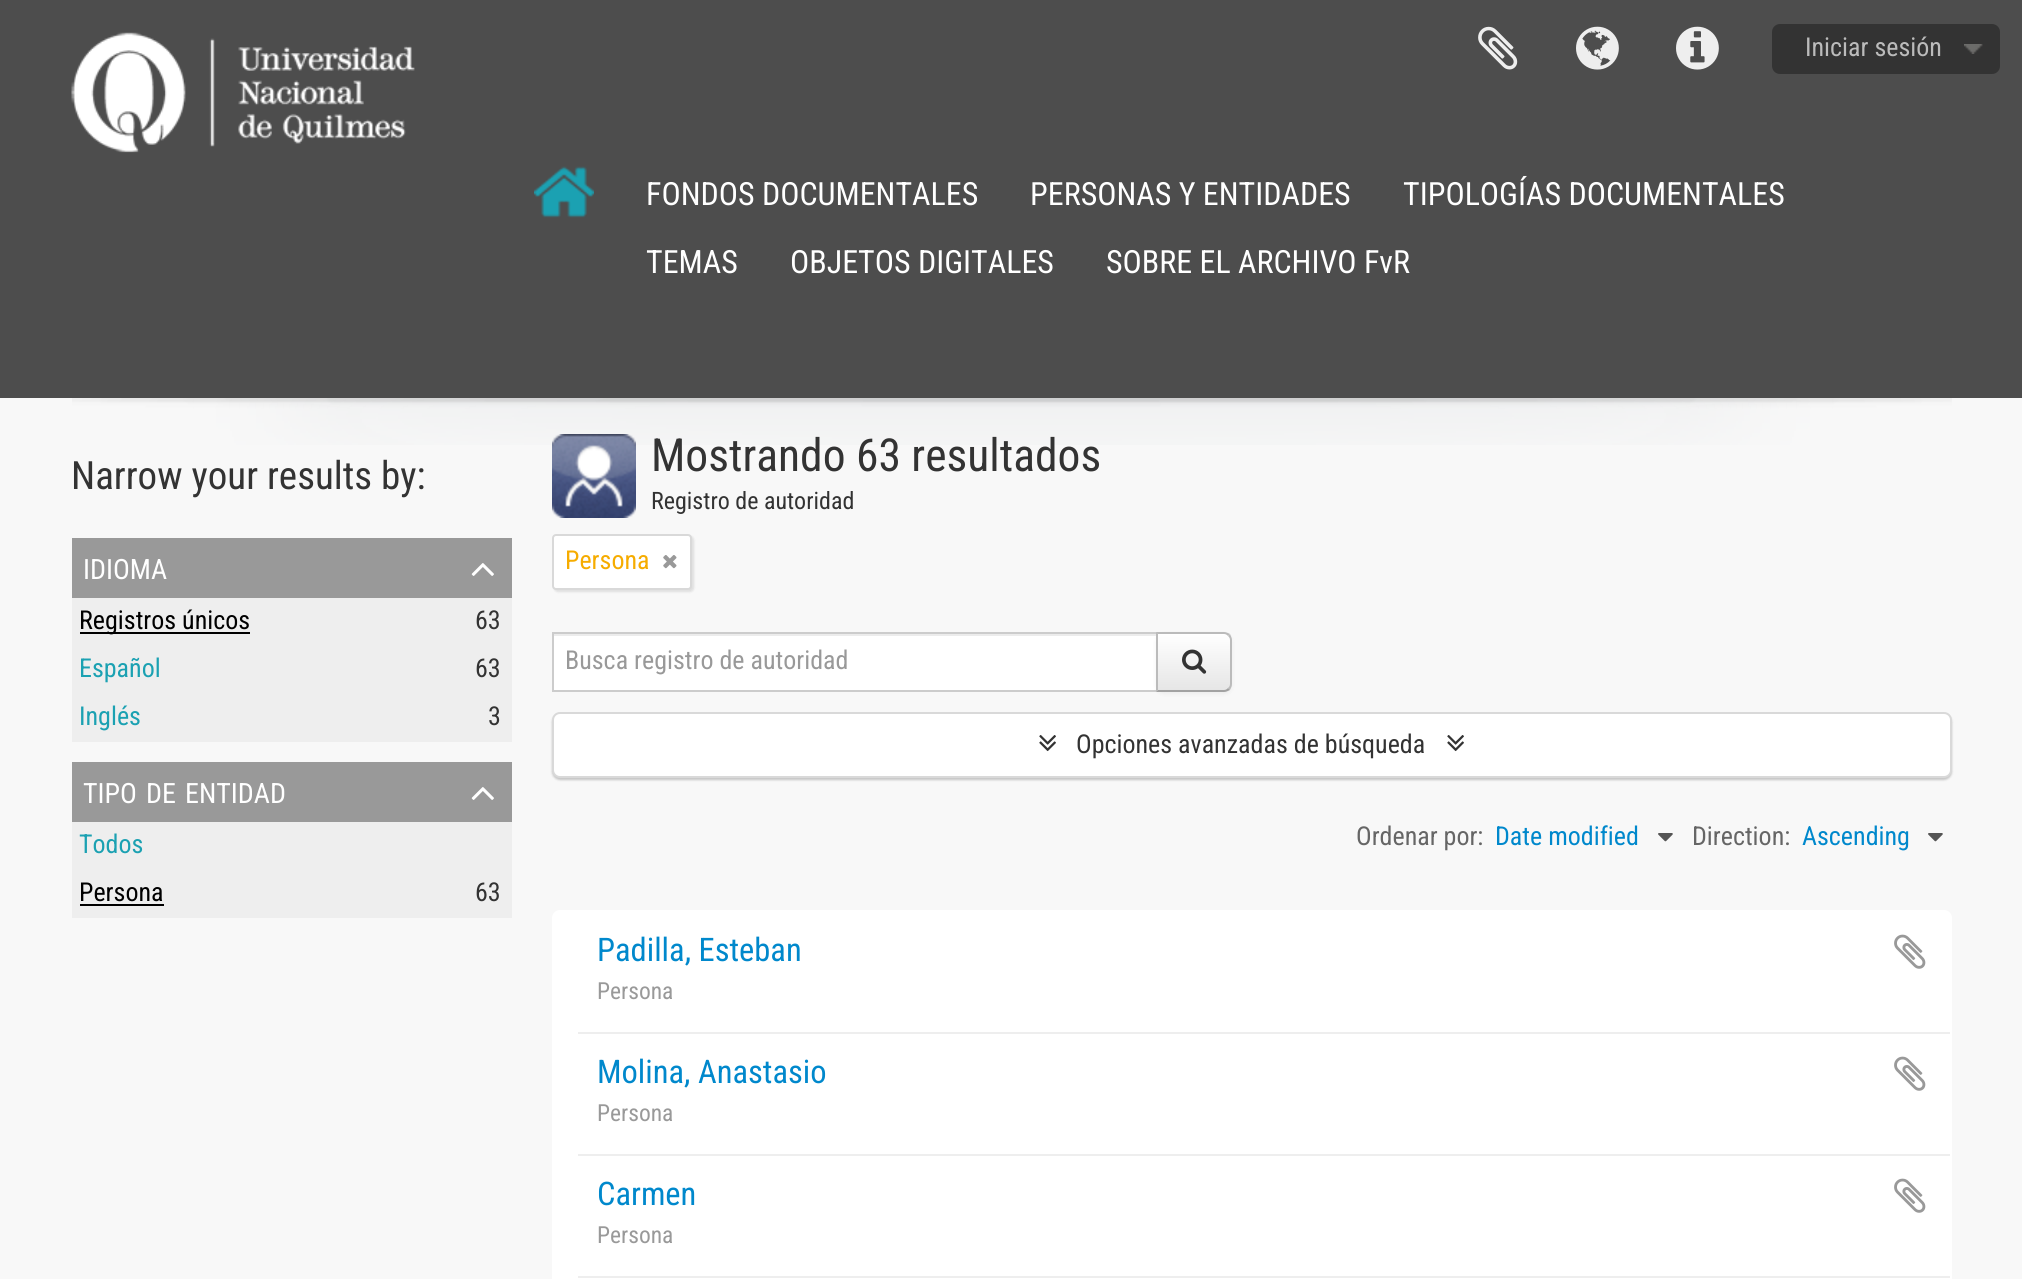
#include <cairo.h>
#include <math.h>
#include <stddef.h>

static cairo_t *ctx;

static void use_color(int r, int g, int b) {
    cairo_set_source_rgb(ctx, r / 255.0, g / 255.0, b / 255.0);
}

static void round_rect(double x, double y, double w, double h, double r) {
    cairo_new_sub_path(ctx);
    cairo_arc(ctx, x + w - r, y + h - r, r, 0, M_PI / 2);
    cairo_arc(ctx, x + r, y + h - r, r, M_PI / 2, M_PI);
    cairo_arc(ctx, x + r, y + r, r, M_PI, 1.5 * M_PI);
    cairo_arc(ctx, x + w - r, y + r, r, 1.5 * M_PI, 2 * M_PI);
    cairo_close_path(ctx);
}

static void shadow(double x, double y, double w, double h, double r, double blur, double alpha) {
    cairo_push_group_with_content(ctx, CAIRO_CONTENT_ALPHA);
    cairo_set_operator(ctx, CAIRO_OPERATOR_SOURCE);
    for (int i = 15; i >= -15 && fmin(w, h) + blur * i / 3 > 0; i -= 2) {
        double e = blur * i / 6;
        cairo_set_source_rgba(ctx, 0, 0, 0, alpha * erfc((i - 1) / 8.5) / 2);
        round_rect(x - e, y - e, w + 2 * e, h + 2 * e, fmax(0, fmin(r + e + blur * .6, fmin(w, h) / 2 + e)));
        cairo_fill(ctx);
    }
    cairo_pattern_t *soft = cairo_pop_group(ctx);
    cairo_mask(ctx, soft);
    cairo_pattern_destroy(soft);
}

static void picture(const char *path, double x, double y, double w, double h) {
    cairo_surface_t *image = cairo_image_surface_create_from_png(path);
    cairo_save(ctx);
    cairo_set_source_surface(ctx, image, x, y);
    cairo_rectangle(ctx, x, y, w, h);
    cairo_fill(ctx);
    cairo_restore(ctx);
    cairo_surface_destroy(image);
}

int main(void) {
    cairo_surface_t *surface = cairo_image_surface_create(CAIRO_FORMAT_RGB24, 2022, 1279);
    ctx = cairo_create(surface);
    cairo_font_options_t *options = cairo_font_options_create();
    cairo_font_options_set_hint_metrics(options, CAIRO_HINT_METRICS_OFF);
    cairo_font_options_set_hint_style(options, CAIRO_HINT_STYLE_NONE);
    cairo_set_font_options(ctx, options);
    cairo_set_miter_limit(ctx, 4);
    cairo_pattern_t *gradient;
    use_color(248, 248, 248);
    cairo_paint(ctx);
    use_color(77, 77, 77);
    cairo_rectangle(ctx, 0, 0, 2022, 398);
    cairo_fill(ctx);
    picture("img1.png", 71, 32, 344, 121);
    picture("img2.png", 1478, 26, 40, 44);
    picture("img3.png", 1576, 26, 43, 44);
    picture("img4.png", 1676, 26, 43, 44);
    use_color(51, 51, 51);
    round_rect(1772, 24, 228, 50, 8);
    cairo_fill(ctx);
    picture("img5.png", 1964, 44, 19, 10);
    cairo_select_font_face(ctx, "Roboto Condensed", CAIRO_FONT_SLANT_NORMAL, CAIRO_FONT_WEIGHT_NORMAL);
    cairo_set_font_size(ctx, 26);
    use_color(187, 187, 187);
    cairo_move_to(ctx, 1805, 56);
    cairo_show_text(ctx, "Iniciar sesión");
    picture("img6.png", 534, 166, 60, 52);
    cairo_set_font_size(ctx, 32);
    use_color(255, 255, 255);
    cairo_move_to(ctx, 646, 205);
    cairo_show_text(ctx, "FONDOS DOCUMENTALES");
    cairo_move_to(ctx, 1030, 205);
    cairo_show_text(ctx, "PERSONAS Y ENTIDADES");
    cairo_move_to(ctx, 1403, 205);
    cairo_show_text(ctx, "TIPOLOGÍAS DOCUMENTALES");
    cairo_move_to(ctx, 646, 273);
    cairo_show_text(ctx, "TEMAS");
    cairo_move_to(ctx, 790, 273);
    cairo_show_text(ctx, "OBJETOS DIGITALES");
    cairo_move_to(ctx, 1106, 273);
    cairo_show_text(ctx, "SOBRE EL ARCHIVO FvR");
    picture("img7.png", 72, 398, 1880, 47);
    cairo_set_font_size(ctx, 39);
    use_color(51, 51, 51);
    cairo_move_to(ctx, 71, 489);
    cairo_show_text(ctx, "Narrow your results by:");
    use_color(153, 153, 153);
    cairo_rectangle(ctx, 72, 538, 440, 60);
    cairo_fill(ctx);
    cairo_set_font_size(ctx, 28);
    use_color(255, 255, 255);
    cairo_move_to(ctx, 83, 579);
    cairo_show_text(ctx, "IDIOMA");
    picture("img8.png", 471, 563, 23, 13);
    use_color(238, 238, 238);
    cairo_rectangle(ctx, 72, 598, 440, 144);
    cairo_fill(ctx);
    use_color(0, 0, 0);
    cairo_rectangle(ctx, 80, 632, 170, 2);
    cairo_fill(ctx);
    cairo_set_font_size(ctx, 26);
    cairo_move_to(ctx, 79, 629);
    cairo_show_text(ctx, "Registros únicos");
    use_color(51, 51, 51);
    cairo_move_to(ctx, 475, 629);
    cairo_show_text(ctx, "63");
    use_color(27, 161, 178);
    cairo_move_to(ctx, 79, 677);
    cairo_show_text(ctx, "Español");
    use_color(51, 51, 51);
    cairo_move_to(ctx, 475, 677);
    cairo_show_text(ctx, "63");
    use_color(27, 161, 178);
    cairo_move_to(ctx, 79, 725);
    cairo_show_text(ctx, "Inglés");
    use_color(51, 51, 51);
    cairo_move_to(ctx, 488, 725);
    cairo_show_text(ctx, "3");
    use_color(153, 153, 153);
    cairo_rectangle(ctx, 72, 762, 440, 60);
    cairo_fill(ctx);
    cairo_set_font_size(ctx, 28);
    use_color(255, 255, 255);
    cairo_move_to(ctx, 83, 803);
    cairo_show_text(ctx, "TIPO");
    cairo_move_to(ctx, 146, 803);
    cairo_show_text(ctx, "DE");
    cairo_move_to(ctx, 185, 803);
    cairo_show_text(ctx, "ENTIDAD");
    picture("img8.png", 471, 787, 23, 13);
    use_color(238, 238, 238);
    cairo_rectangle(ctx, 72, 822, 440, 96);
    cairo_fill(ctx);
    cairo_set_font_size(ctx, 26);
    use_color(27, 161, 178);
    cairo_move_to(ctx, 79, 853);
    cairo_show_text(ctx, "Todos");
    use_color(0, 0, 0);
    cairo_move_to(ctx, 79, 901);
    cairo_show_text(ctx, "Persona");
    cairo_rectangle(ctx, 80, 904, 84, 2);
    cairo_fill(ctx);
    use_color(51, 51, 51);
    cairo_move_to(ctx, 475, 901);
    cairo_show_text(ctx, "63");
    picture("img9.png", 552, 434, 84, 84);
    cairo_set_font_size(ctx, 45.5);
    cairo_move_to(ctx, 651, 471);
    cairo_show_text(ctx, "Mostrando 63 resultados");
    cairo_set_font_size(ctx, 24);
    cairo_move_to(ctx, 651, 509);
    cairo_show_text(ctx, "Registro de autoridad");
    use_color(0, 0, 0);
    shadow(554, 536, 140, 56, 4, 1, 0.1);
    use_color(255, 255, 255);
    round_rect(553, 535, 138, 54, 3);
    cairo_fill_preserve(ctx);
    use_color(217, 217, 217);
    cairo_stroke(ctx);
    cairo_set_font_size(ctx, 26);
    use_color(246, 172, 0);
    cairo_move_to(ctx, 565, 569);
    cairo_show_text(ctx, "Persona");
    picture("img10.png", 663, 555, 14, 14);
    use_color(255, 255, 255);
    cairo_rectangle(ctx, 554, 636, 602, 54);
    cairo_fill(ctx);
    use_color(236, 236, 236);
    cairo_rectangle(ctx, 554, 634, 604, 2);
    cairo_fill(ctx);
    cairo_rectangle(ctx, 553, 633, 606, 58);
    use_color(204, 204, 204);
    cairo_stroke(ctx);
    use_color(153, 153, 153);
    cairo_move_to(ctx, 565, 669);
    cairo_show_text(ctx, "Busca registro de autoridad");
    use_color(0, 0, 0);
    shadow(1156, 634, 76, 60, 8, 2, 0.05);
    cairo_save(ctx);
    cairo_new_path(ctx);
    cairo_move_to(ctx, 1156, 632);
    cairo_line_to(ctx, 1224, 632);
    cairo_curve_to(ctx, 1228.5, 632, 1232, 635.5, 1232, 640);
    cairo_line_to(ctx, 1232, 684);
    cairo_curve_to(ctx, 1232, 688.5, 1228.5, 692, 1224, 692);
    cairo_line_to(ctx, 1156, 692);
    cairo_close_path(ctx);
    cairo_clip(ctx);
    gradient = cairo_pattern_create_linear(1194, 634, 1194, 690);
    cairo_pattern_add_color_stop_rgba(gradient, 0, 1, 1, 1, 1);
    cairo_pattern_add_color_stop_rgba(gradient, 1, 0.902, 0.902, 0.902, 1);
    cairo_set_source(ctx, gradient);
    cairo_pattern_destroy(gradient);
    cairo_rectangle(ctx, 1158, 634, 74, 56);
    cairo_fill(ctx);
    cairo_restore(ctx);
    use_color(187, 187, 187);
    cairo_new_path(ctx);
    cairo_move_to(ctx, 1156, 632);
    cairo_line_to(ctx, 1158, 634);
    cairo_line_to(ctx, 1224, 634);
    cairo_curve_to(ctx, 1226, 634, 1227, 635, 1228, 636);
    cairo_line_to(ctx, 1230, 634);
    cairo_curve_to(ctx, 1228, 633, 1226, 632, 1224, 632);
    cairo_close_path(ctx);
    cairo_fill(ctx);
    cairo_new_path(ctx);
    cairo_move_to(ctx, 1232, 684);
    cairo_line_to(ctx, 1232, 640);
    cairo_curve_to(ctx, 1232, 638, 1231, 636, 1230, 634);
    cairo_line_to(ctx, 1228, 636);
    cairo_curve_to(ctx, 1229, 637, 1230, 638, 1230, 640);
    cairo_line_to(ctx, 1230, 684);
    cairo_curve_to(ctx, 1230, 686, 1229, 687, 1228, 688);
    cairo_line_to(ctx, 1230, 690);
    cairo_curve_to(ctx, 1231, 688, 1232, 686, 1232, 684);
    cairo_close_path(ctx);
    cairo_fill(ctx);
    use_color(162, 162, 162);
    cairo_new_path(ctx);
    cairo_move_to(ctx, 1224, 692);
    cairo_curve_to(ctx, 1226, 692, 1228, 691, 1230, 690);
    cairo_line_to(ctx, 1228, 688);
    cairo_curve_to(ctx, 1227, 689, 1226, 690, 1224, 690);
    cairo_line_to(ctx, 1158, 690);
    cairo_line_to(ctx, 1156, 692);
    cairo_close_path(ctx);
    cairo_fill(ctx);
    use_color(187, 187, 187);
    cairo_new_path(ctx);
    cairo_move_to(ctx, 1156, 632);
    cairo_line_to(ctx, 1156, 692);
    cairo_line_to(ctx, 1158, 690);
    cairo_line_to(ctx, 1158, 634);
    cairo_close_path(ctx);
    cairo_fill(ctx);
    picture("img11.png", 1182, 649, 25, 25);
    use_color(0, 0, 0);
    shadow(552, 714, 1400, 66, 8, 1, 0.2);
    use_color(255, 255, 255);
    round_rect(553, 713, 1398, 64, 7);
    cairo_fill_preserve(ctx);
    use_color(217, 217, 217);
    cairo_stroke(ctx);
    picture("img12.png", 1039, 735, 17, 17);
    use_color(51, 51, 51);
    cairo_move_to(ctx, 1076, 753);
    cairo_show_text(ctx, "Opciones avanzadas de búsqueda");
    picture("img12.png", 1447, 735, 17, 17);
    use_color(102, 102, 102);
    cairo_move_to(ctx, 1356, 845);
    cairo_show_text(ctx, "Ordenar por:");
    use_color(0, 136, 204);
    cairo_move_to(ctx, 1495, 845);
    cairo_show_text(ctx, "Date modified");
    picture("img13.png", 1658, 833, 15, 9);
    use_color(102, 102, 102);
    cairo_move_to(ctx, 1692, 845);
    cairo_show_text(ctx, "Direction:");
    use_color(0, 136, 204);
    cairo_move_to(ctx, 1802, 845);
    cairo_show_text(ctx, "Ascending");
    picture("img13.png", 1928, 833, 15, 9);
    use_color(255, 255, 255);
    round_rect(552, 910, 1400, 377, 8);
    cairo_fill(ctx);
    use_color(238, 238, 238);
    cairo_rectangle(ctx, 578, 1032, 1372, 2);
    cairo_fill(ctx);
    cairo_set_font_size(ctx, 32.5);
    use_color(0, 136, 204);
    cairo_move_to(ctx, 597, 961);
    cairo_show_text(ctx, "Padilla, Esteban");
    picture("img14.png", 1894, 934, 32, 35);
    cairo_set_font_size(ctx, 23.5);
    use_color(153, 153, 153);
    cairo_move_to(ctx, 597, 999);
    cairo_show_text(ctx, "Persona");
    use_color(238, 238, 238);
    cairo_rectangle(ctx, 578, 1154, 1372, 2);
    cairo_fill(ctx);
    cairo_set_font_size(ctx, 32.5);
    use_color(0, 136, 204);
    cairo_move_to(ctx, 597, 1083);
    cairo_show_text(ctx, "Molina, Anastasio");
    picture("img14.png", 1894, 1056, 32, 35);
    cairo_set_font_size(ctx, 23.5);
    use_color(153, 153, 153);
    cairo_move_to(ctx, 597, 1121);
    cairo_show_text(ctx, "Persona");
    use_color(238, 238, 238);
    cairo_rectangle(ctx, 578, 1276, 1372, 2);
    cairo_fill(ctx);
    cairo_set_font_size(ctx, 32.5);
    use_color(0, 136, 204);
    cairo_move_to(ctx, 597, 1205);
    cairo_show_text(ctx, "Carmen");
    picture("img14.png", 1894, 1178, 32, 35);
    cairo_set_font_size(ctx, 23.5);
    use_color(153, 153, 153);
    cairo_move_to(ctx, 597, 1243);
    cairo_show_text(ctx, "Persona");
    cairo_surface_write_to_png(surface, "result.png");
    cairo_font_options_destroy(options);
    cairo_destroy(ctx);
    cairo_surface_destroy(surface);
    return 0;
}
